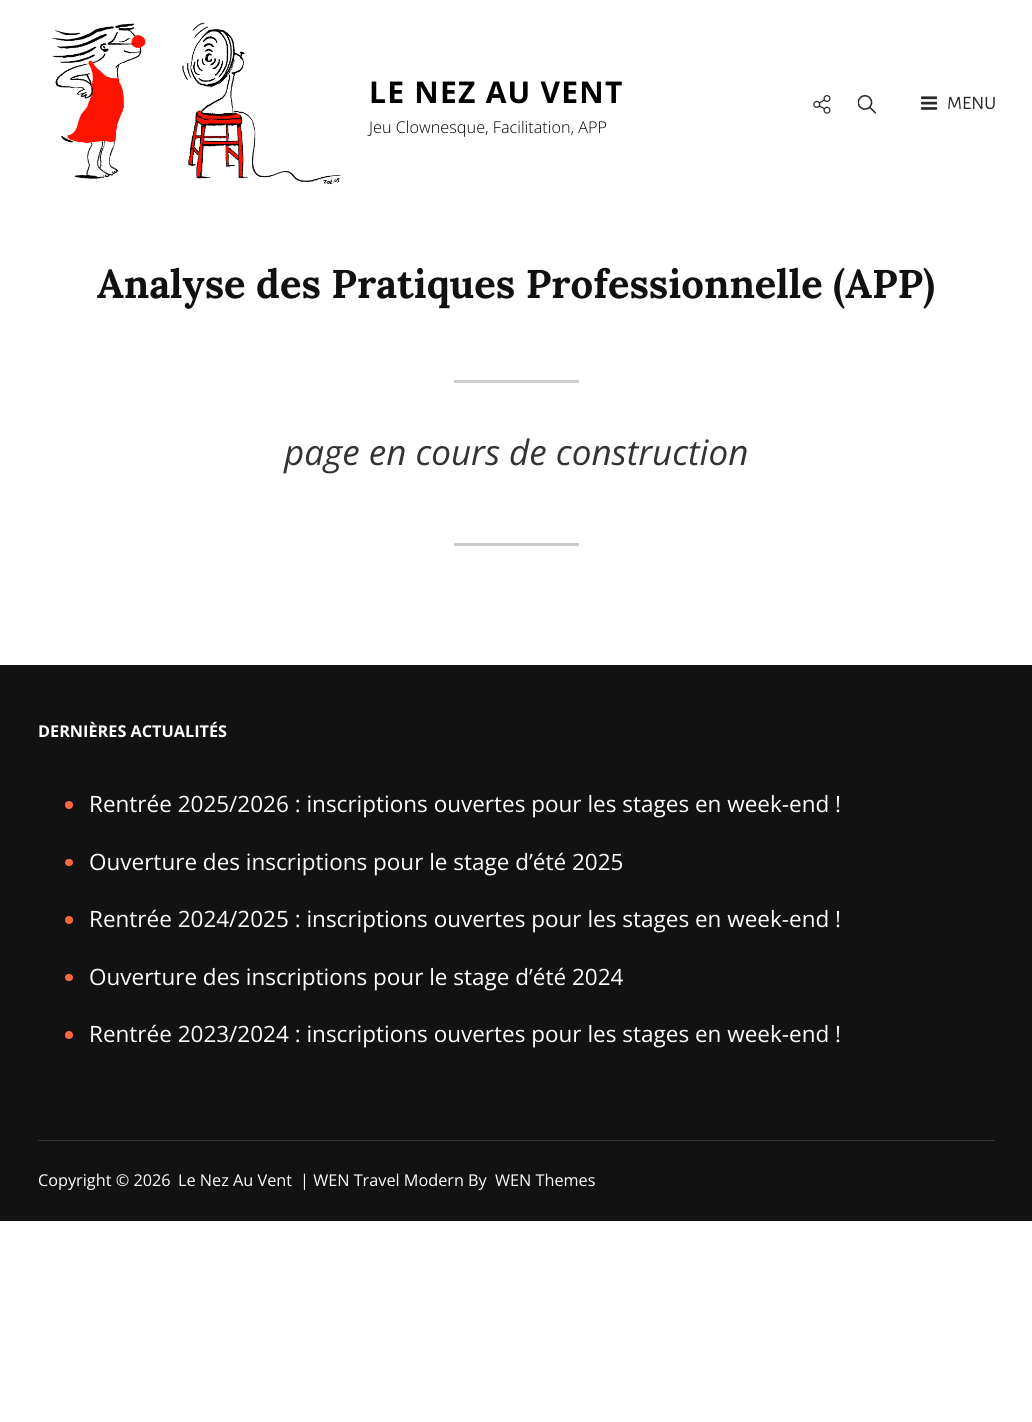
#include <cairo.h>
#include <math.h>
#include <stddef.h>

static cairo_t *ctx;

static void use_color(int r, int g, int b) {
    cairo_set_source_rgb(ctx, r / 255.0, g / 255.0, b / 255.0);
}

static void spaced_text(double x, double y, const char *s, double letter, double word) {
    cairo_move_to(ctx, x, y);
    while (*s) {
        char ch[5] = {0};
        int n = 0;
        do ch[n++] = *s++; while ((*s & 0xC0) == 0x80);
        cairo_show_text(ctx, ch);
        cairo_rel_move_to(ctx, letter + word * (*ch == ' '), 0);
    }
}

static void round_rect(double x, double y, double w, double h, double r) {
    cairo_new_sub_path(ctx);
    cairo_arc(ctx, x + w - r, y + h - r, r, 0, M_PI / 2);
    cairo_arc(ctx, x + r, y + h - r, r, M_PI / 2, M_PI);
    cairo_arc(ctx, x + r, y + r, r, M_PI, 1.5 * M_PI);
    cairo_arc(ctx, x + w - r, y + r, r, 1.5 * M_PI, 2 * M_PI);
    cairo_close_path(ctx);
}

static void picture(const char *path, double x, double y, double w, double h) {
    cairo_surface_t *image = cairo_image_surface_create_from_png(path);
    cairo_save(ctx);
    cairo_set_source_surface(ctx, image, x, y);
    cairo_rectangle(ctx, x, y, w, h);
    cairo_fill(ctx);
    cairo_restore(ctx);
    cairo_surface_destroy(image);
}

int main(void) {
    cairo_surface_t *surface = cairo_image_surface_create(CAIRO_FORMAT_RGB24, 1032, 1422);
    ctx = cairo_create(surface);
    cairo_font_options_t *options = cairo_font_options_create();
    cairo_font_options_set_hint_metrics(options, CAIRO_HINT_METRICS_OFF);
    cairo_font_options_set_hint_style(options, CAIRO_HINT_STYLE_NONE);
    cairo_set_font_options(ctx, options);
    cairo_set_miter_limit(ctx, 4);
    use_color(255, 255, 255);
    cairo_paint(ctx);
    picture("img1.png", 52, 22, 289, 163);
    cairo_select_font_face(ctx, "Open Sans", CAIRO_FONT_SLANT_NORMAL, CAIRO_FONT_WEIGHT_BOLD);
    cairo_set_font_size(ctx, 30);
    use_color(0, 0, 0);
    spaced_text(369, 103, "LE NEZ AU VENT", 1.25, 0);
    cairo_select_font_face(ctx, "Open Sans Light", CAIRO_FONT_SLANT_NORMAL, CAIRO_FONT_WEIGHT_NORMAL);
    cairo_set_font_size(ctx, 16.25);
    cairo_move_to(ctx, 369, 133);
    cairo_show_text(ctx, "Jeu Clownesque, Facilitation, APP");
    picture("img2.png", 813, 95, 18, 19);
    picture("img3.png", 858, 95, 18, 19);
    picture("img4.png", 921, 96, 17, 14);
    cairo_select_font_face(ctx, "Alegreya Sans", CAIRO_FONT_SLANT_NORMAL, CAIRO_FONT_WEIGHT_NORMAL);
    cairo_set_font_size(ctx, 19);
    use_color(41, 41, 41);
    cairo_move_to(ctx, 947, 109);
    cairo_show_text(ctx, "MENU");
    cairo_select_font_face(ctx, "Lora", CAIRO_FONT_SLANT_NORMAL, CAIRO_FONT_WEIGHT_BOLD);
    cairo_set_font_size(ctx, 40);
    use_color(17, 17, 17);
    cairo_move_to(ctx, 97, 298);
    cairo_show_text(ctx, "Analyse des Pratiques Professionnelle (APP)");
    use_color(204, 204, 204);
    cairo_rectangle(ctx, 454, 380, 125, 3);
    cairo_fill(ctx);
    cairo_select_font_face(ctx, "Open Sans", CAIRO_FONT_SLANT_ITALIC, CAIRO_FONT_WEIGHT_NORMAL);
    cairo_set_font_size(ctx, 35);
    use_color(51, 51, 51);
    cairo_move_to(ctx, 284, 465);
    cairo_show_text(ctx, "page en cours de construction");
    use_color(204, 204, 204);
    cairo_rectangle(ctx, 454, 543, 125, 3);
    cairo_fill(ctx);
    use_color(18, 18, 18);
    cairo_rectangle(ctx, 0, 665, 1032, 556);
    cairo_fill(ctx);
    cairo_select_font_face(ctx, "Open Sans", CAIRO_FONT_SLANT_NORMAL, CAIRO_FONT_WEIGHT_BOLD);
    cairo_set_font_size(ctx, 16.25);
    use_color(255, 255, 255);
    cairo_move_to(ctx, 38, 737);
    cairo_show_text(ctx, "DERNIÈRES ACTUALITÉS");
    use_color(250, 103, 66);
    cairo_new_path(ctx);
    cairo_arc(ctx, 69, 805, 4, 0, 2 * M_PI);
    cairo_fill(ctx);
    cairo_select_font_face(ctx, "Open Sans", CAIRO_FONT_SLANT_NORMAL, CAIRO_FONT_WEIGHT_NORMAL);
    cairo_set_font_size(ctx, 22.5);
    use_color(255, 255, 255);
    cairo_move_to(ctx, 89, 812);
    cairo_show_text(ctx, "Rentrée 2025/2026 : inscriptions ouvertes pour les stages en week-end !");
    use_color(250, 103, 66);
    round_rect(65, 859, 8, 7, 3.5);
    cairo_fill(ctx);
    use_color(255, 255, 255);
    cairo_move_to(ctx, 89, 870);
    cairo_show_text(ctx, "Ouverture des inscriptions pour le stage d’été 2025");
    use_color(250, 103, 66);
    cairo_new_path(ctx);
    cairo_arc(ctx, 69, 920, 4, 0, 2 * M_PI);
    cairo_fill(ctx);
    use_color(255, 255, 255);
    cairo_move_to(ctx, 89, 927);
    cairo_show_text(ctx, "Rentrée 2024/2025 : inscriptions ouvertes pour les stages en week-end !");
    use_color(250, 103, 66);
    round_rect(65, 974, 8, 7, 3.5);
    cairo_fill(ctx);
    use_color(255, 255, 255);
    cairo_move_to(ctx, 89, 985);
    cairo_show_text(ctx, "Ouverture des inscriptions pour le stage d’été 2024");
    use_color(250, 103, 66);
    cairo_new_path(ctx);
    cairo_arc(ctx, 69, 1035, 4, 0, 2 * M_PI);
    cairo_fill(ctx);
    use_color(255, 255, 255);
    cairo_move_to(ctx, 89, 1042);
    cairo_show_text(ctx, "Rentrée 2023/2024 : inscriptions ouvertes pour les stages en week-end !");
    use_color(51, 51, 51);
    cairo_rectangle(ctx, 38, 1140, 957, 1);
    cairo_fill(ctx);
    cairo_set_font_size(ctx, 16.25);
    use_color(255, 255, 255);
    cairo_move_to(ctx, 38, 1186);
    cairo_show_text(ctx, "Copyright © 2026");
    cairo_move_to(ctx, 178, 1186);
    cairo_show_text(ctx, "Le Nez Au Vent");
    cairo_move_to(ctx, 300, 1186);
    cairo_show_text(ctx, "| WEN Travel Modern By");
    cairo_move_to(ctx, 495, 1186);
    cairo_show_text(ctx, "WEN Themes");
    cairo_surface_write_to_png(surface, "result.png");
    cairo_font_options_destroy(options);
    cairo_destroy(ctx);
    cairo_surface_destroy(surface);
    return 0;
}
